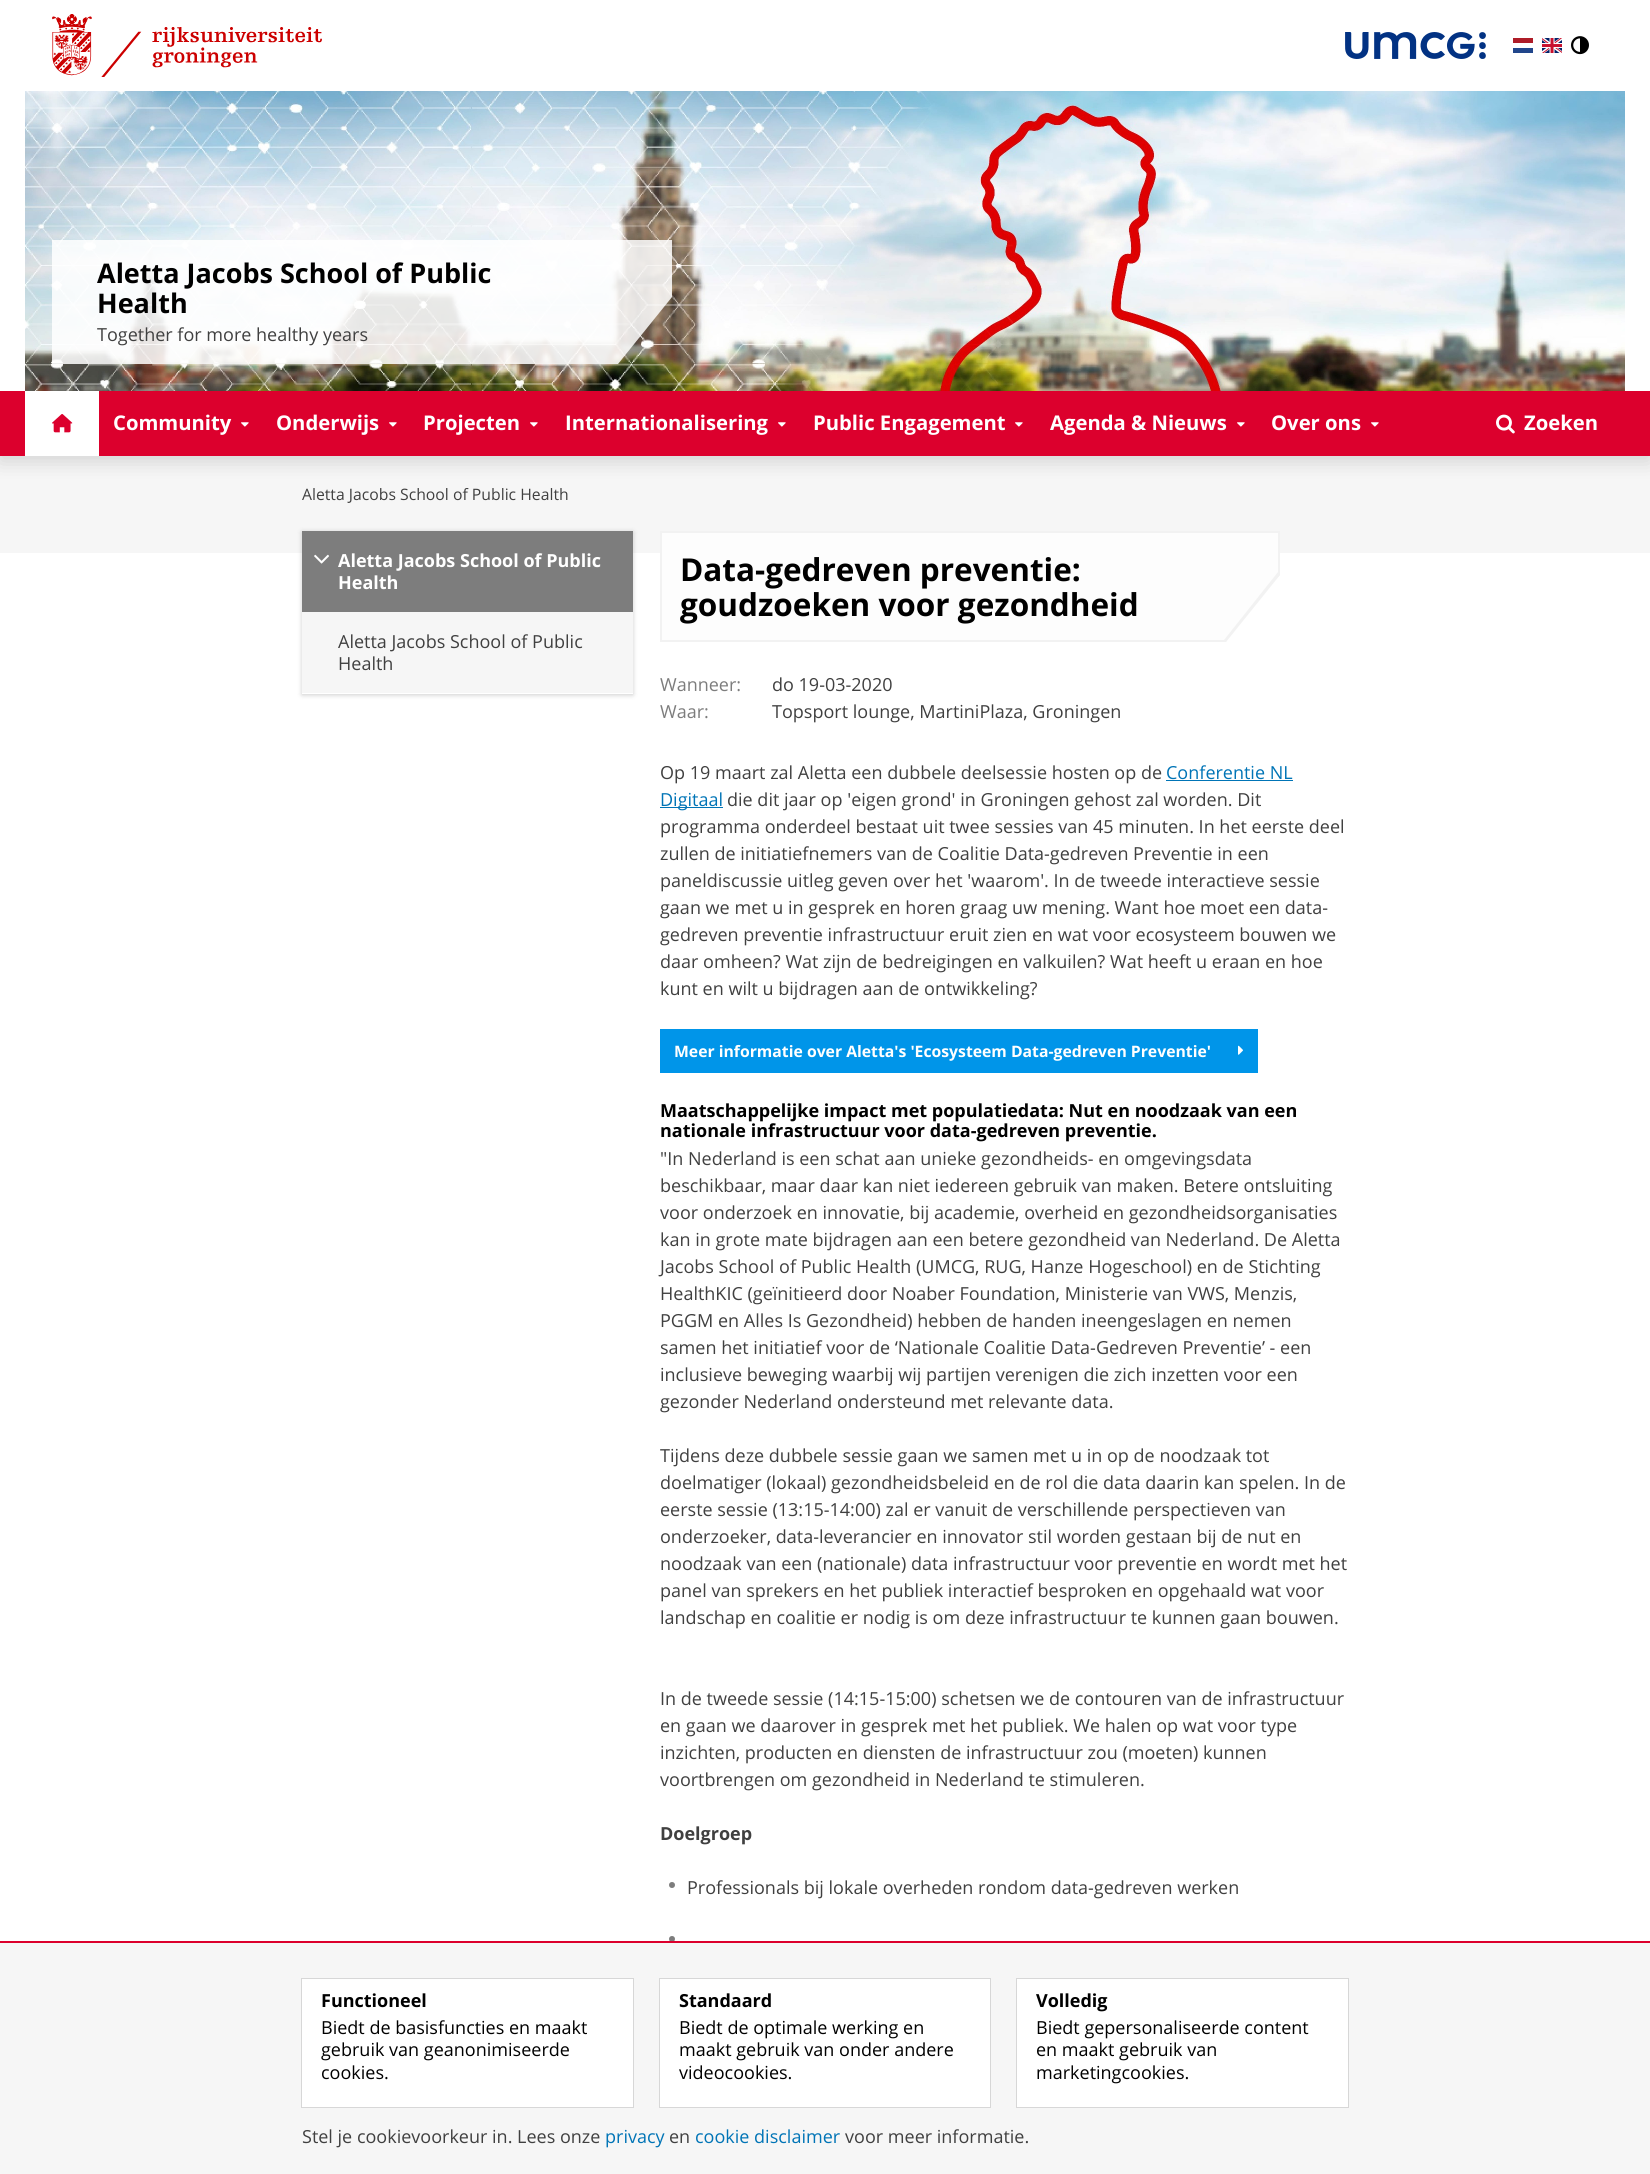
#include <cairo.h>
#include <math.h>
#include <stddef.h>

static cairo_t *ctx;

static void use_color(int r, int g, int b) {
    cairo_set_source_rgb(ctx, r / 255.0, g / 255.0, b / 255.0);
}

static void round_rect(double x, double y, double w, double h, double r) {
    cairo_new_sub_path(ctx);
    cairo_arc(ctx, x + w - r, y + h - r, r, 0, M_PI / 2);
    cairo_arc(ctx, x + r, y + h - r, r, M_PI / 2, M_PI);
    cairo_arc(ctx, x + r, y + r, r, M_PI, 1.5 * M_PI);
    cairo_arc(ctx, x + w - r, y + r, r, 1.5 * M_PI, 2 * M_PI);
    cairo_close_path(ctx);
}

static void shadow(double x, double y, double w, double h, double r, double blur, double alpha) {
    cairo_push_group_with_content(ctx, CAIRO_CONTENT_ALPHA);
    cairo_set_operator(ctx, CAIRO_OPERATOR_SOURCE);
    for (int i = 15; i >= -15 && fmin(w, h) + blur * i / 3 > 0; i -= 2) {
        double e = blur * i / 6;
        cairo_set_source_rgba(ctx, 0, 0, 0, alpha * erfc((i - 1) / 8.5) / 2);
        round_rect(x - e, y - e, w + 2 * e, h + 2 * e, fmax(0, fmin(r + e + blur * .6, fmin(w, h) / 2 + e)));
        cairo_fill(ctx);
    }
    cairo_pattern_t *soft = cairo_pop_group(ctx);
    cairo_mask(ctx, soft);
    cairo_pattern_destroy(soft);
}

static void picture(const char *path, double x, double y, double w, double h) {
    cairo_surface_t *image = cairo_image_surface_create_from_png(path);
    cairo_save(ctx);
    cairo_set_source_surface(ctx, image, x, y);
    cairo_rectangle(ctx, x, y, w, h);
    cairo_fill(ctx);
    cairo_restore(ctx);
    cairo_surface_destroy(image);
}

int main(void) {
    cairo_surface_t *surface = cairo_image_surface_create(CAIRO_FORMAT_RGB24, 1650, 2174);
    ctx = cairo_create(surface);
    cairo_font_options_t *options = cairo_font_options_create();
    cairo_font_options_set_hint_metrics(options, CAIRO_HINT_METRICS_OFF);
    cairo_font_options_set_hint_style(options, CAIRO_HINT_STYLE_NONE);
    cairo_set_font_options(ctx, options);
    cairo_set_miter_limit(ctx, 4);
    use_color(246, 246, 246);
    cairo_paint(ctx);
    use_color(0, 0, 0);
    shadow(0, 5, 1650, 456, 0, 10, 0.15);
    use_color(255, 255, 255);
    cairo_rectangle(ctx, 0, 0, 1650, 391);
    cairo_fill(ctx);
    picture("img1.png", 52, 14, 270, 63);
    picture("img2.png", 1345, 32, 141, 27);
    use_color(33, 70, 139);
    cairo_rectangle(ctx, 1513, 48, 20, 5);
    cairo_fill(ctx);
    use_color(174, 28, 40);
    cairo_rectangle(ctx, 1513, 38, 20, 5);
    cairo_fill(ctx);
    picture("img3.png", 1542, 38, 20, 15);
    picture("img4.png", 1571, 36, 18, 19);
    picture("img5.png", 25, 91, 1600, 300);
    cairo_set_source_rgba(ctx, 1, 1, 1, 0.85);
    cairo_new_path(ctx);
    cairo_move_to(ctx, 52, 240);
    cairo_line_to(ctx, 52, 364);
    cairo_line_to(ctx, 618, 364);
    cairo_line_to(ctx, 672, 297);
    cairo_line_to(ctx, 672, 240);
    cairo_close_path(ctx);
    cairo_fill(ctx);
    cairo_select_font_face(ctx, "Open Sans", CAIRO_FONT_SLANT_NORMAL, CAIRO_FONT_WEIGHT_BOLD);
    cairo_set_font_size(ctx, 27);
    use_color(0, 0, 0);
    cairo_move_to(ctx, 97, 283);
    cairo_show_text(ctx, "Aletta Jacobs School of Public");
    cairo_move_to(ctx, 97, 313);
    cairo_show_text(ctx, "Health");
    cairo_select_font_face(ctx, "Open Sans", CAIRO_FONT_SLANT_NORMAL, CAIRO_FONT_WEIGHT_NORMAL);
    cairo_set_font_size(ctx, 18);
    use_color(64, 64, 64);
    cairo_move_to(ctx, 97, 341);
    cairo_show_text(ctx, "Together for more healthy years");
    use_color(220, 0, 45);
    cairo_rectangle(ctx, 0, 391, 1650, 65);
    cairo_fill(ctx);
    use_color(255, 255, 255);
    cairo_rectangle(ctx, 25, 391, 74, 65);
    cairo_fill(ctx);
    picture("img6.png", 52, 414, 21, 19);
    cairo_select_font_face(ctx, "Open Sans", CAIRO_FONT_SLANT_NORMAL, CAIRO_FONT_WEIGHT_BOLD);
    cairo_set_font_size(ctx, 20.25);
    cairo_move_to(ctx, 113, 430);
    cairo_show_text(ctx, "Community");
    picture("img7.png", 241, 422, 8, 5);
    cairo_move_to(ctx, 276, 430);
    cairo_show_text(ctx, "Onderwijs");
    picture("img7.png", 389, 422, 8, 5);
    cairo_move_to(ctx, 423, 430);
    cairo_show_text(ctx, "Projecten");
    picture("img7.png", 530, 422, 8, 5);
    cairo_move_to(ctx, 565, 430);
    cairo_show_text(ctx, "Internationalisering");
    picture("img7.png", 778, 422, 8, 5);
    cairo_move_to(ctx, 813, 430);
    cairo_show_text(ctx, "Public Engagement");
    picture("img7.png", 1015, 422, 8, 5);
    cairo_move_to(ctx, 1050, 430);
    cairo_show_text(ctx, "Agenda & Nieuws");
    picture("img7.png", 1237, 422, 8, 5);
    cairo_move_to(ctx, 1271, 430);
    cairo_show_text(ctx, "Over ons");
    picture("img7.png", 1371, 422, 8, 5);
    picture("img8.png", 1496, 414, 19, 20);
    cairo_move_to(ctx, 1524, 430);
    cairo_show_text(ctx, "Zoeken");
    cairo_select_font_face(ctx, "Open Sans", CAIRO_FONT_SLANT_NORMAL, CAIRO_FONT_WEIGHT_NORMAL);
    cairo_set_font_size(ctx, 15.75);
    use_color(64, 64, 64);
    cairo_move_to(ctx, 302, 500);
    cairo_show_text(ctx, "Aletta Jacobs School of Public Health");
    use_color(255, 255, 255);
    cairo_rectangle(ctx, 0, 553, 1650, 1388);
    cairo_fill(ctx);
    use_color(0, 0, 0);
    shadow(302, 532, 331, 163, 0, 2.5, 0.2);
    use_color(246, 246, 246);
    cairo_rectangle(ctx, 302, 612, 331, 81);
    cairo_fill(ctx);
    use_color(255, 255, 255);
    cairo_rectangle(ctx, 302, 693, 331, 1);
    cairo_fill(ctx);
    use_color(125, 125, 125);
    cairo_rectangle(ctx, 302, 531, 331, 81);
    cairo_fill(ctx);
    picture("img9.png", 314, 554, 15, 10);
    cairo_select_font_face(ctx, "Open Sans", CAIRO_FONT_SLANT_NORMAL, CAIRO_FONT_WEIGHT_BOLD);
    cairo_set_font_size(ctx, 18);
    use_color(255, 255, 255);
    cairo_move_to(ctx, 338, 567);
    cairo_show_text(ctx, "Aletta Jacobs School of Public");
    cairo_move_to(ctx, 338, 589);
    cairo_show_text(ctx, "Health");
    cairo_select_font_face(ctx, "Open Sans", CAIRO_FONT_SLANT_NORMAL, CAIRO_FONT_WEIGHT_NORMAL);
    use_color(64, 64, 64);
    cairo_move_to(ctx, 338, 648);
    cairo_show_text(ctx, "Aletta Jacobs School of Public");
    cairo_move_to(ctx, 338, 670);
    cairo_show_text(ctx, "Health");
    use_color(242, 242, 242);
    cairo_new_path(ctx);
    cairo_move_to(ctx, 660, 531);
    cairo_line_to(ctx, 1280, 531);
    cairo_line_to(ctx, 1280, 575);
    cairo_line_to(ctx, 1226, 642);
    cairo_line_to(ctx, 660, 642);
    cairo_close_path(ctx);
    cairo_fill(ctx);
    cairo_new_path(ctx);
    cairo_move_to(ctx, 660, 531);
    cairo_line_to(ctx, 660, 642);
    cairo_line_to(ctx, 1226, 642);
    cairo_line_to(ctx, 1227, 640);
    cairo_line_to(ctx, 662, 640);
    cairo_line_to(ctx, 662, 533);
    cairo_line_to(ctx, 1278, 533);
    cairo_line_to(ctx, 1278, 577);
    cairo_line_to(ctx, 1280, 575);
    cairo_line_to(ctx, 1280, 531);
    cairo_close_path(ctx);
    cairo_fill(ctx);
    use_color(253, 253, 253);
    cairo_new_path(ctx);
    cairo_move_to(ctx, 662, 533);
    cairo_line_to(ctx, 1278, 533);
    cairo_line_to(ctx, 1278, 572);
    cairo_line_to(ctx, 1224, 640);
    cairo_line_to(ctx, 662, 640);
    cairo_close_path(ctx);
    cairo_fill(ctx);
    cairo_select_font_face(ctx, "Open Sans", CAIRO_FONT_SLANT_NORMAL, CAIRO_FONT_WEIGHT_BOLD);
    cairo_set_font_size(ctx, 31.5);
    use_color(0, 0, 0);
    cairo_move_to(ctx, 680, 581);
    cairo_show_text(ctx, "Data-gedreven preventie:");
    cairo_move_to(ctx, 680, 616);
    cairo_show_text(ctx, "goudzoeken voor gezondheid");
    cairo_select_font_face(ctx, "Open Sans", CAIRO_FONT_SLANT_NORMAL, CAIRO_FONT_WEIGHT_NORMAL);
    cairo_set_font_size(ctx, 18);
    use_color(125, 125, 125);
    cairo_move_to(ctx, 660, 691);
    cairo_show_text(ctx, "Wanneer:");
    use_color(64, 64, 64);
    cairo_move_to(ctx, 772, 691);
    cairo_show_text(ctx, "do 19-03-2020");
    use_color(125, 125, 125);
    cairo_move_to(ctx, 660, 718);
    cairo_show_text(ctx, "Waar:");
    use_color(64, 64, 64);
    cairo_move_to(ctx, 772, 718);
    cairo_show_text(ctx, "Topsport lounge, MartiniPlaza, Groningen");
    cairo_move_to(ctx, 660, 779);
    cairo_show_text(ctx, "Op 19 maart zal Aletta een dubbele deelsessie hosten op de");
    use_color(0, 116, 182);
    cairo_move_to(ctx, 1166, 779);
    cairo_show_text(ctx, "Conferentie NL");
    cairo_rectangle(ctx, 1166, 780, 127, 1);
    cairo_fill(ctx);
    cairo_rectangle(ctx, 660, 807, 63, 1);
    cairo_fill(ctx);
    cairo_move_to(ctx, 660, 806);
    cairo_show_text(ctx, "Digitaal");
    use_color(64, 64, 64);
    cairo_move_to(ctx, 727, 806);
    cairo_show_text(ctx, "die dit jaar op 'eigen grond' in Groningen gehost zal worden. Dit");
    cairo_move_to(ctx, 660, 833);
    cairo_show_text(ctx, "programma onderdeel bestaat uit twee sessies van 45 minuten. In het eerste deel");
    cairo_move_to(ctx, 660, 860);
    cairo_show_text(ctx, "zullen de initiatiefnemers van de Coalitie Data-gedreven Preventie in een");
    cairo_move_to(ctx, 660, 887);
    cairo_show_text(ctx, "paneldiscussie uitleg geven over het 'waarom'. In de tweede interactieve sessie");
    cairo_move_to(ctx, 660, 914);
    cairo_show_text(ctx, "gaan we met u in gesprek en horen graag uw mening. Want hoe moet een data-");
    cairo_move_to(ctx, 660, 941);
    cairo_show_text(ctx, "gedreven preventie infrastructuur eruit zien en wat voor ecosysteem bouwen we");
    cairo_move_to(ctx, 660, 968);
    cairo_show_text(ctx, "daar omheen? Wat zijn de bedreigingen en valkuilen? Wat heeft u eraan en hoe");
    cairo_move_to(ctx, 660, 995);
    cairo_show_text(ctx, "kunt en wilt u bijdragen aan de ontwikkeling?");
    use_color(0, 149, 233);
    cairo_rectangle(ctx, 660, 1029, 598, 44);
    cairo_fill(ctx);
    cairo_select_font_face(ctx, "Open Sans", CAIRO_FONT_SLANT_NORMAL, CAIRO_FONT_WEIGHT_BOLD);
    cairo_set_font_size(ctx, 15.75);
    use_color(255, 255, 255);
    cairo_move_to(ctx, 674, 1057);
    cairo_show_text(ctx, "Meer informatie over Aletta's 'Ecosysteem Data-gedreven Preventie'");
    picture("img10.png", 1238, 1045, 5, 10);
    cairo_set_font_size(ctx, 18);
    use_color(0, 0, 0);
    cairo_move_to(ctx, 660, 1117);
    cairo_show_text(ctx, "Maatschappelijke impact met populatiedata: Nut en noodzaak van een");
    cairo_move_to(ctx, 660, 1137);
    cairo_show_text(ctx, "nationale infrastructuur voor data-gedreven preventie.");
    cairo_select_font_face(ctx, "Open Sans", CAIRO_FONT_SLANT_NORMAL, CAIRO_FONT_WEIGHT_NORMAL);
    use_color(64, 64, 64);
    cairo_move_to(ctx, 660, 1165);
    cairo_show_text(ctx, "\"In Nederland is een schat aan unieke gezondheids- en omgevingsdata");
    cairo_move_to(ctx, 660, 1192);
    cairo_show_text(ctx, "beschikbaar, maar daar kan niet iedereen gebruik van maken. Betere ontsluiting");
    cairo_move_to(ctx, 660, 1219);
    cairo_show_text(ctx, "voor onderzoek en innovatie, bij academie, overheid en gezondheidsorganisaties");
    cairo_move_to(ctx, 660, 1246);
    cairo_show_text(ctx, "kan in grote mate bijdragen aan een betere gezondheid van Nederland. De Aletta");
    cairo_move_to(ctx, 660, 1273);
    cairo_show_text(ctx, "Jacobs School of Public Health (UMCG, RUG, Hanze Hogeschool) en de Stichting");
    cairo_move_to(ctx, 660, 1300);
    cairo_show_text(ctx, "HealthKIC (geïnitieerd door Noaber Foundation, Ministerie van VWS, Menzis,");
    cairo_move_to(ctx, 660, 1327);
    cairo_show_text(ctx, "PGGM en Alles Is Gezondheid) hebben de handen ineengeslagen en nemen");
    cairo_move_to(ctx, 660, 1354);
    cairo_show_text(ctx, "samen het initiatief voor de ‘Nationale Coalitie Data-Gedreven Preventie’ - een");
    cairo_move_to(ctx, 660, 1381);
    cairo_show_text(ctx, "inclusieve beweging waarbij wij partijen verenigen die zich inzetten voor een");
    cairo_move_to(ctx, 660, 1408);
    cairo_show_text(ctx, "gezonder Nederland ondersteund met relevante data.");
    cairo_move_to(ctx, 660, 1462);
    cairo_show_text(ctx, "Tijdens deze dubbele sessie gaan we samen met u in op de noodzaak tot");
    cairo_move_to(ctx, 660, 1489);
    cairo_show_text(ctx, "doelmatiger (lokaal) gezondheidsbeleid en de rol die data daarin kan spelen. In de");
    cairo_move_to(ctx, 660, 1516);
    cairo_show_text(ctx, "eerste sessie (13:15-14:00) zal er vanuit de verschillende perspectieven van");
    cairo_move_to(ctx, 660, 1543);
    cairo_show_text(ctx, "onderzoeker, data-leverancier en innovator stil worden gestaan bij de nut en");
    cairo_move_to(ctx, 660, 1570);
    cairo_show_text(ctx, "noodzaak van een (nationale) data infrastructuur voor preventie en wordt met het");
    cairo_move_to(ctx, 660, 1597);
    cairo_show_text(ctx, "panel van sprekers en het publiek interactief besproken en opgehaald wat voor");
    cairo_move_to(ctx, 660, 1624);
    cairo_show_text(ctx, "landschap en coalitie er nodig is om deze infrastructuur te kunnen gaan bouwen.");
    cairo_move_to(ctx, 660, 1705);
    cairo_show_text(ctx, "In de tweede sessie (14:15-15:00) schetsen we de contouren van de infrastructuur");
    cairo_move_to(ctx, 660, 1732);
    cairo_show_text(ctx, "en gaan we daarover in gesprek met het publiek. We halen op wat voor type");
    cairo_move_to(ctx, 660, 1759);
    cairo_show_text(ctx, "inzichten, producten en diensten de infrastructuur zou (moeten) kunnen");
    cairo_move_to(ctx, 660, 1786);
    cairo_show_text(ctx, "voortbrengen om gezondheid in Nederland te stimuleren.");
    cairo_select_font_face(ctx, "Open Sans", CAIRO_FONT_SLANT_NORMAL, CAIRO_FONT_WEIGHT_BOLD);
    cairo_move_to(ctx, 660, 1840);
    cairo_show_text(ctx, "Doelgroep");
    use_color(125, 125, 125);
    cairo_new_path(ctx);
    cairo_arc(ctx, 672, 1885, 3, 0, 2 * M_PI);
    cairo_fill(ctx);
    cairo_select_font_face(ctx, "Open Sans", CAIRO_FONT_SLANT_NORMAL, CAIRO_FONT_WEIGHT_NORMAL);
    use_color(64, 64, 64);
    cairo_move_to(ctx, 687, 1894);
    cairo_show_text(ctx, "Professionals bij lokale overheden rondom data-gedreven werken");
    use_color(125, 125, 125);
    cairo_new_path(ctx);
    cairo_arc(ctx, 672, 1939, 3, 0, 2 * M_PI);
    cairo_fill(ctx);
    use_color(220, 0, 45);
    cairo_rectangle(ctx, 0, 1941, 1650, 2);
    cairo_fill(ctx);
    cairo_rectangle(ctx, 301.5, 1978.5, 332, 129);
    use_color(215, 215, 215);
    cairo_set_line_width(ctx, 1);
    cairo_stroke(ctx);
    use_color(255, 255, 255);
    cairo_rectangle(ctx, 302, 1979, 331, 128);
    cairo_fill(ctx);
    cairo_select_font_face(ctx, "Open Sans", CAIRO_FONT_SLANT_NORMAL, CAIRO_FONT_WEIGHT_BOLD);
    use_color(0, 0, 0);
    cairo_move_to(ctx, 321, 2007);
    cairo_show_text(ctx, "Functioneel");
    cairo_select_font_face(ctx, "Open Sans", CAIRO_FONT_SLANT_NORMAL, CAIRO_FONT_WEIGHT_NORMAL);
    cairo_move_to(ctx, 321, 2034);
    cairo_show_text(ctx, "Biedt de basisfuncties en maakt");
    cairo_move_to(ctx, 321, 2056);
    cairo_show_text(ctx, "gebruik van geanonimiseerde");
    cairo_move_to(ctx, 321, 2079);
    cairo_show_text(ctx, "cookies.");
    cairo_rectangle(ctx, 659.5, 1978.5, 331, 129);
    use_color(215, 215, 215);
    cairo_stroke(ctx);
    use_color(255, 255, 255);
    cairo_rectangle(ctx, 660, 1979, 330, 128);
    cairo_fill(ctx);
    cairo_select_font_face(ctx, "Open Sans", CAIRO_FONT_SLANT_NORMAL, CAIRO_FONT_WEIGHT_BOLD);
    use_color(0, 0, 0);
    cairo_move_to(ctx, 679, 2007);
    cairo_show_text(ctx, "Standaard");
    cairo_select_font_face(ctx, "Open Sans", CAIRO_FONT_SLANT_NORMAL, CAIRO_FONT_WEIGHT_NORMAL);
    cairo_move_to(ctx, 679, 2034);
    cairo_show_text(ctx, "Biedt de optimale werking en");
    cairo_move_to(ctx, 679, 2056);
    cairo_show_text(ctx, "maakt gebruik van onder andere");
    cairo_move_to(ctx, 679, 2079);
    cairo_show_text(ctx, "videocookies.");
    cairo_rectangle(ctx, 1016.5, 1978.5, 332, 129);
    use_color(215, 215, 215);
    cairo_stroke(ctx);
    use_color(255, 255, 255);
    cairo_rectangle(ctx, 1017, 1979, 331, 128);
    cairo_fill(ctx);
    cairo_select_font_face(ctx, "Open Sans", CAIRO_FONT_SLANT_NORMAL, CAIRO_FONT_WEIGHT_BOLD);
    use_color(0, 0, 0);
    cairo_move_to(ctx, 1036, 2007);
    cairo_show_text(ctx, "Volledig");
    cairo_select_font_face(ctx, "Open Sans", CAIRO_FONT_SLANT_NORMAL, CAIRO_FONT_WEIGHT_NORMAL);
    cairo_move_to(ctx, 1036, 2034);
    cairo_show_text(ctx, "Biedt gepersonaliseerde content");
    cairo_move_to(ctx, 1036, 2056);
    cairo_show_text(ctx, "en maakt gebruik van");
    cairo_move_to(ctx, 1036, 2079);
    cairo_show_text(ctx, "marketingcookies.");
    use_color(64, 64, 64);
    cairo_move_to(ctx, 302, 2143);
    cairo_show_text(ctx, "Stel je cookievoorkeur in. Lees onze");
    use_color(0, 116, 182);
    cairo_move_to(ctx, 605, 2143);
    cairo_show_text(ctx, "privacy");
    use_color(64, 64, 64);
    cairo_move_to(ctx, 669, 2143);
    cairo_show_text(ctx, "en");
    use_color(0, 116, 182);
    cairo_move_to(ctx, 695, 2143);
    cairo_show_text(ctx, "cookie disclaimer");
    use_color(64, 64, 64);
    cairo_move_to(ctx, 845, 2143);
    cairo_show_text(ctx, "voor meer informatie.");
    cairo_surface_write_to_png(surface, "result.png");
    cairo_font_options_destroy(options);
    cairo_destroy(ctx);
    cairo_surface_destroy(surface);
    return 0;
}
